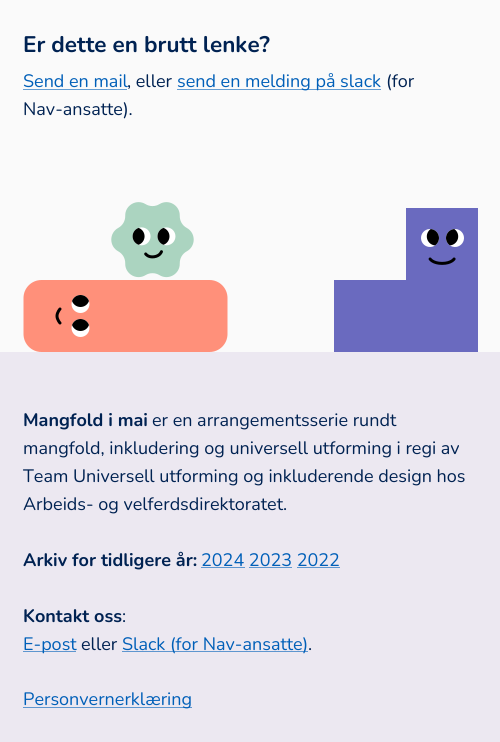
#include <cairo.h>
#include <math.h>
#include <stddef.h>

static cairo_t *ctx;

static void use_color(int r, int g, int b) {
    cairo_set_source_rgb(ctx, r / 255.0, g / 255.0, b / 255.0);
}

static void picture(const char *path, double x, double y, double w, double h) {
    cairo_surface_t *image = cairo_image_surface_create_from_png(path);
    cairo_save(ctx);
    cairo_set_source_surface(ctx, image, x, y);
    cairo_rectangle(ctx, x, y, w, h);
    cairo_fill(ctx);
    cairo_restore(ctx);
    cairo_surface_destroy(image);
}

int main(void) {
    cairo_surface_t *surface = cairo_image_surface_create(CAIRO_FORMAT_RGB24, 500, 742);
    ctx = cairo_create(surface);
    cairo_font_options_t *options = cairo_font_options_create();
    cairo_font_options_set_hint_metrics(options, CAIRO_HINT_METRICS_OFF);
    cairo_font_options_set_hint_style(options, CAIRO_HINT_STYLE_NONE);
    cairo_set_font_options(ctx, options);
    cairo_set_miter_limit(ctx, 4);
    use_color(250, 250, 250);
    cairo_paint(ctx);
    cairo_select_font_face(ctx, "Nunito", CAIRO_FONT_SLANT_NORMAL, CAIRO_FONT_WEIGHT_BOLD);
    cairo_set_font_size(ctx, 22.5);
    use_color(0, 34, 82);
    cairo_move_to(ctx, 23, 52);
    cairo_show_text(ctx, "Er dette en brutt lenke?");
    cairo_select_font_face(ctx, "Nunito", CAIRO_FONT_SLANT_NORMAL, CAIRO_FONT_WEIGHT_NORMAL);
    cairo_set_font_size(ctx, 18);
    use_color(0, 95, 184);
    cairo_move_to(ctx, 23, 87);
    cairo_show_text(ctx, "Send en mail");
    use_color(100, 157, 210);
    cairo_rectangle(ctx, 23, 89, 104, 1);
    cairo_fill(ctx);
    use_color(0, 34, 82);
    cairo_move_to(ctx, 127, 87);
    cairo_show_text(ctx, ", eller");
    use_color(100, 157, 210);
    cairo_rectangle(ctx, 177, 89, 204, 1);
    cairo_fill(ctx);
    use_color(0, 95, 184);
    cairo_move_to(ctx, 177, 87);
    cairo_show_text(ctx, "send en melding på slack");
    use_color(0, 34, 82);
    cairo_move_to(ctx, 386, 87);
    cairo_show_text(ctx, "(for");
    cairo_move_to(ctx, 23, 115);
    cairo_show_text(ctx, "Nav-ansatte).");
    picture("img1.png", 111, 202, 83, 76);
    picture("img2.png", 334, 208, 144, 144);
    picture("img3.png", 23, 280, 205, 72);
    use_color(236, 232, 241);
    cairo_rectangle(ctx, 0, 352, 500, 390);
    cairo_fill(ctx);
    cairo_select_font_face(ctx, "Nunito", CAIRO_FONT_SLANT_NORMAL, CAIRO_FONT_WEIGHT_BOLD);
    use_color(0, 34, 82);
    cairo_move_to(ctx, 23, 426);
    cairo_show_text(ctx, "Mangfold i mai");
    cairo_select_font_face(ctx, "Nunito", CAIRO_FONT_SLANT_NORMAL, CAIRO_FONT_WEIGHT_NORMAL);
    cairo_move_to(ctx, 152, 426);
    cairo_show_text(ctx, "er en arrangementsserie rundt");
    cairo_move_to(ctx, 23, 454);
    cairo_show_text(ctx, "mangfold, inkludering og universell utforming i regi av");
    cairo_move_to(ctx, 23, 482);
    cairo_show_text(ctx, "Team Universell utforming og inkluderende design hos");
    cairo_move_to(ctx, 23, 510);
    cairo_show_text(ctx, "Arbeids- og velferdsdirektoratet.");
    cairo_select_font_face(ctx, "Nunito", CAIRO_FONT_SLANT_NORMAL, CAIRO_FONT_WEIGHT_BOLD);
    cairo_move_to(ctx, 23, 566);
    cairo_show_text(ctx, "Arkiv for tidligere år:");
    cairo_select_font_face(ctx, "Nunito", CAIRO_FONT_SLANT_NORMAL, CAIRO_FONT_WEIGHT_NORMAL);
    use_color(0, 95, 184);
    cairo_move_to(ctx, 201, 566);
    cairo_show_text(ctx, "2024 2023 2022");
    use_color(94, 150, 207);
    cairo_rectangle(ctx, 201, 567, 44, 1);
    cairo_fill(ctx);
    cairo_rectangle(ctx, 249, 567, 43, 1);
    cairo_fill(ctx);
    cairo_rectangle(ctx, 297, 567, 43, 1);
    cairo_fill(ctx);
    cairo_select_font_face(ctx, "Nunito", CAIRO_FONT_SLANT_NORMAL, CAIRO_FONT_WEIGHT_BOLD);
    use_color(0, 34, 82);
    cairo_move_to(ctx, 23, 622);
    cairo_show_text(ctx, "Kontakt oss");
    cairo_select_font_face(ctx, "Nunito", CAIRO_FONT_SLANT_NORMAL, CAIRO_FONT_WEIGHT_NORMAL);
    cairo_move_to(ctx, 122, 622);
    cairo_show_text(ctx, ":");
    use_color(94, 150, 207);
    cairo_rectangle(ctx, 23, 651, 53, 1);
    cairo_fill(ctx);
    use_color(0, 95, 184);
    cairo_move_to(ctx, 23, 650);
    cairo_show_text(ctx, "E-post");
    use_color(0, 34, 82);
    cairo_move_to(ctx, 81, 650);
    cairo_show_text(ctx, "eller");
    use_color(94, 150, 207);
    cairo_rectangle(ctx, 122, 651, 186, 1);
    cairo_fill(ctx);
    use_color(0, 95, 184);
    cairo_move_to(ctx, 122, 650);
    cairo_show_text(ctx, "Slack (for Nav-ansatte)");
    use_color(0, 34, 82);
    cairo_move_to(ctx, 308, 650);
    cairo_show_text(ctx, ".");
    use_color(94, 150, 207);
    cairo_rectangle(ctx, 23, 707, 169, 1);
    cairo_fill(ctx);
    use_color(0, 95, 184);
    cairo_move_to(ctx, 23, 705);
    cairo_show_text(ctx, "Personvernerklæring");
    cairo_surface_write_to_png(surface, "result.png");
    cairo_font_options_destroy(options);
    cairo_destroy(ctx);
    cairo_surface_destroy(surface);
    return 0;
}
